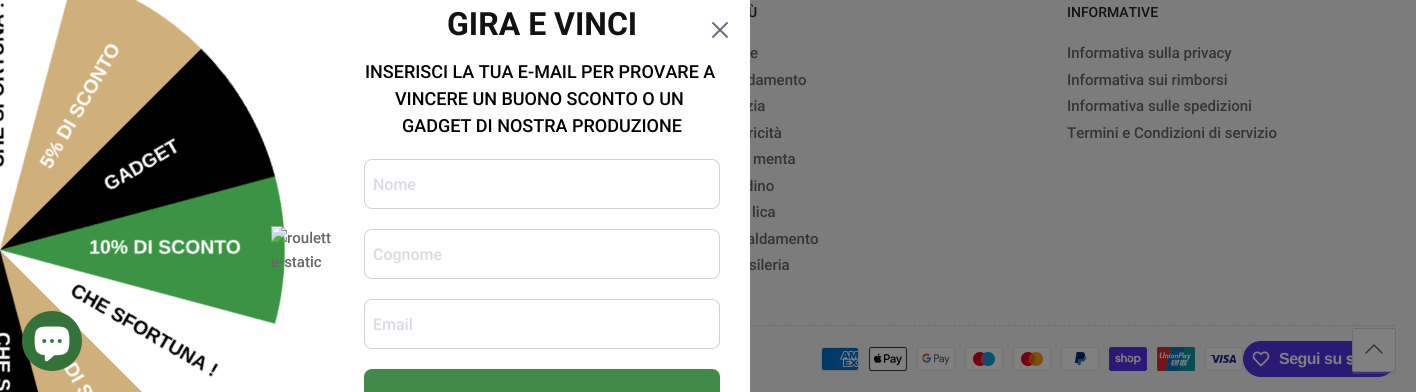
#include <cairo.h>
#include <math.h>
#include <stddef.h>

static cairo_t *ctx;

static void use_color(int r, int g, int b) {
    cairo_set_source_rgb(ctx, r / 255.0, g / 255.0, b / 255.0);
}

static void spaced_text(double x, double y, const char *s, double letter, double word) {
    cairo_move_to(ctx, x, y);
    while (*s) {
        char ch[5] = {0};
        int n = 0;
        do ch[n++] = *s++; while ((*s & 0xC0) == 0x80);
        cairo_show_text(ctx, ch);
        cairo_rel_move_to(ctx, letter + word * (*ch == ' '), 0);
    }
}

static void round_rect(double x, double y, double w, double h, double r) {
    cairo_new_sub_path(ctx);
    cairo_arc(ctx, x + w - r, y + h - r, r, 0, M_PI / 2);
    cairo_arc(ctx, x + r, y + h - r, r, M_PI / 2, M_PI);
    cairo_arc(ctx, x + r, y + r, r, M_PI, 1.5 * M_PI);
    cairo_arc(ctx, x + w - r, y + r, r, 1.5 * M_PI, 2 * M_PI);
    cairo_close_path(ctx);
}

static void picture(const char *path, double x, double y, double w, double h) {
    cairo_surface_t *image = cairo_image_surface_create_from_png(path);
    cairo_save(ctx);
    cairo_set_source_surface(ctx, image, x, y);
    cairo_rectangle(ctx, x, y, w, h);
    cairo_fill(ctx);
    cairo_restore(ctx);
    cairo_surface_destroy(image);
}

int main(void) {
    cairo_surface_t *surface = cairo_image_surface_create(CAIRO_FORMAT_RGB24, 1416, 392);
    ctx = cairo_create(surface);
    cairo_font_options_t *options = cairo_font_options_create();
    cairo_font_options_set_hint_metrics(options, CAIRO_HINT_METRICS_OFF);
    cairo_font_options_set_hint_style(options, CAIRO_HINT_STYLE_NONE);
    cairo_set_font_options(ctx, options);
    cairo_set_miter_limit(ctx, 4);
    use_color(124, 124, 124);
    cairo_paint(ctx);
    cairo_select_font_face(ctx, "Roboto Medium", CAIRO_FONT_SLANT_NORMAL, CAIRO_FONT_WEIGHT_NORMAL);
    cairo_set_font_size(ctx, 14);
    use_color(18, 18, 18);
    cairo_move_to(ctx, 748, 17);
    cairo_show_text(ctx, "Ù");
    cairo_set_font_size(ctx, 15);
    use_color(52, 52, 52);
    cairo_move_to(ctx, 747, 85);
    cairo_show_text(ctx, "damento");
    cairo_move_to(ctx, 746, 111);
    cairo_show_text(ctx, "zia");
    cairo_move_to(ctx, 748, 138);
    cairo_show_text(ctx, "ricità");
    cairo_move_to(ctx, 745, 191);
    cairo_show_text(ctx, "dino");
    cairo_move_to(ctx, 747, 244);
    cairo_show_text(ctx, "aldamento");
    cairo_move_to(ctx, 749, 270);
    cairo_show_text(ctx, "sileria");
    cairo_new_path(ctx);
    cairo_move_to(ctx, 20, 325.5);
    cairo_line_to(ctx, 1396, 325.5);
    use_color(109, 109, 109);
    cairo_set_line_width(ctx, 1);
    cairo_set_dash(ctx, (double[]){3, 1.99}, 2, 0);
    cairo_stroke(ctx);
    use_color(255, 255, 255);
    cairo_rectangle(ctx, 0, 0, 750, 392);
    cairo_fill(ctx);
    picture("img1.png", 0, 0, 286, 392);
    picture("img2.png", 271, 226, 60, 42);
    cairo_select_font_face(ctx, "Roboto", CAIRO_FONT_SLANT_NORMAL, CAIRO_FONT_WEIGHT_BOLD);
    cairo_set_font_size(ctx, 32);
    use_color(18, 18, 18);
    cairo_move_to(ctx, 447, 35);
    cairo_show_text(ctx, "GIRA E VINCI");
    cairo_select_font_face(ctx, "Roboto Medium", CAIRO_FONT_SLANT_NORMAL, CAIRO_FONT_WEIGHT_NORMAL);
    cairo_set_font_size(ctx, 18);
    use_color(0, 0, 0);
    cairo_move_to(ctx, 365, 78);
    cairo_show_text(ctx, "INSERISCI LA TUA E-MAIL PER PROVARE A");
    cairo_move_to(ctx, 395, 105);
    cairo_show_text(ctx, "VINCERE UN BUONO SCONTO O UN");
    cairo_move_to(ctx, 402, 132);
    cairo_show_text(ctx, "GADGET DI NOSTRA PRODUZIONE");
    round_rect(364.5, 159.5, 355, 49, 7.5);
    use_color(209, 209, 219);
    cairo_set_dash(ctx, NULL, 0, 0);
    cairo_stroke(ctx);
    cairo_set_font_size(ctx, 16);
    use_color(218, 218, 226);
    cairo_move_to(ctx, 373, 190);
    cairo_show_text(ctx, "Nome");
    round_rect(364.5, 229.5, 355, 49, 7.5);
    use_color(209, 209, 219);
    cairo_stroke(ctx);
    use_color(218, 218, 226);
    cairo_move_to(ctx, 373, 260);
    cairo_show_text(ctx, "Cognome");
    round_rect(364.5, 299.5, 355, 49, 7.5);
    use_color(209, 209, 219);
    cairo_stroke(ctx);
    use_color(218, 218, 226);
    cairo_move_to(ctx, 373, 330);
    cairo_show_text(ctx, "Email");
    use_color(65, 139, 72);
    cairo_new_path(ctx);
    cairo_move_to(ctx, 372, 369);
    cairo_line_to(ctx, 712, 369);
    cairo_curve_to(ctx, 716.5, 369, 720, 372.5, 720, 377);
    cairo_line_to(ctx, 720, 392);
    cairo_line_to(ctx, 364, 392);
    cairo_line_to(ctx, 364, 377);
    cairo_curve_to(ctx, 364, 372.5, 367.5, 369, 372, 369);
    cairo_close_path(ctx);
    cairo_fill(ctx);
    picture("img3.png", 712, 22, 16, 16);
    cairo_set_font_size(ctx, 15);
    use_color(52, 52, 52);
    cairo_move_to(ctx, 750, 58);
    cairo_show_text(ctx, "e");
    cairo_move_to(ctx, 753, 164);
    cairo_show_text(ctx, "menta");
    cairo_move_to(ctx, 752, 217);
    cairo_show_text(ctx, "lica");
    cairo_set_font_size(ctx, 14);
    use_color(18, 18, 18);
    cairo_move_to(ctx, 1067, 17);
    cairo_show_text(ctx, "INFORMATIVE");
    cairo_set_font_size(ctx, 15);
    use_color(52, 52, 52);
    cairo_move_to(ctx, 1067, 58);
    cairo_show_text(ctx, "Informativa sulla privacy");
    cairo_move_to(ctx, 1067, 85);
    cairo_show_text(ctx, "Informativa sui rimborsi");
    cairo_move_to(ctx, 1067, 111);
    cairo_show_text(ctx, "Informativa sulle spedizioni");
    cairo_move_to(ctx, 1067, 138);
    cairo_show_text(ctx, "Termini e Condizioni di servizio");
    picture("img4.png", 821, 347, 38, 24);
    picture("img5.png", 869, 347, 38, 24);
    picture("img6.png", 917, 347, 38, 24);
    picture("img7.png", 965, 347, 38, 24);
    picture("img8.png", 1013, 347, 38, 24);
    picture("img9.png", 1061, 347, 38, 24);
    picture("img10.png", 1109, 347, 38, 24);
    picture("img11.png", 1157, 347, 38, 24);
    picture("img12.png", 1205, 347, 38, 24);
    use_color(42, 26, 118);
    round_rect(1243, 341, 153, 36, 18);
    cairo_fill(ctx);
    picture("img13.png", 1252, 351, 18, 16);
    cairo_select_font_face(ctx, "Liberation Sans", CAIRO_FONT_SLANT_NORMAL, CAIRO_FONT_WEIGHT_BOLD);
    cairo_set_font_size(ctx, 16);
    use_color(128, 128, 128);
    spaced_text(1279, 364, "Segui su", -0.5, 0);
    picture("img14.png", 1346, 355, 6, 10);
    cairo_set_source_rgba(ctx, 0.427, 0.427, 0.427, 0.3);
    cairo_new_path(ctx);
    cairo_move_to(ctx, 1352, 370);
    cairo_curve_to(ctx, 1352, 376, 1355, 374, 1361, 374);
    cairo_line_to(ctx, 1387, 374);
    cairo_curve_to(ctx, 1393, 374, 1396, 376, 1396, 370);
    cairo_curve_to(ctx, 1396, 371, 1395, 372, 1394, 372);
    cairo_line_to(ctx, 1354, 372);
    cairo_curve_to(ctx, 1353, 372, 1352, 371, 1352, 370);
    cairo_close_path(ctx);
    cairo_fill(ctx);
    use_color(128, 128, 128);
    round_rect(1352.5, 328.5, 43, 43, 1.5);
    cairo_fill_preserve(ctx);
    use_color(109, 109, 109);
    cairo_stroke(ctx);
    picture("img15.png", 1365, 344, 18, 10);
    use_color(51, 114, 57);
    cairo_arc(ctx, 52, 341, 30, 0, 2 * M_PI);
    cairo_fill(ctx);
    picture("img16.png", 34, 326, 36, 36);
    cairo_surface_write_to_png(surface, "result.png");
    cairo_font_options_destroy(options);
    cairo_destroy(ctx);
    cairo_surface_destroy(surface);
    return 0;
}
